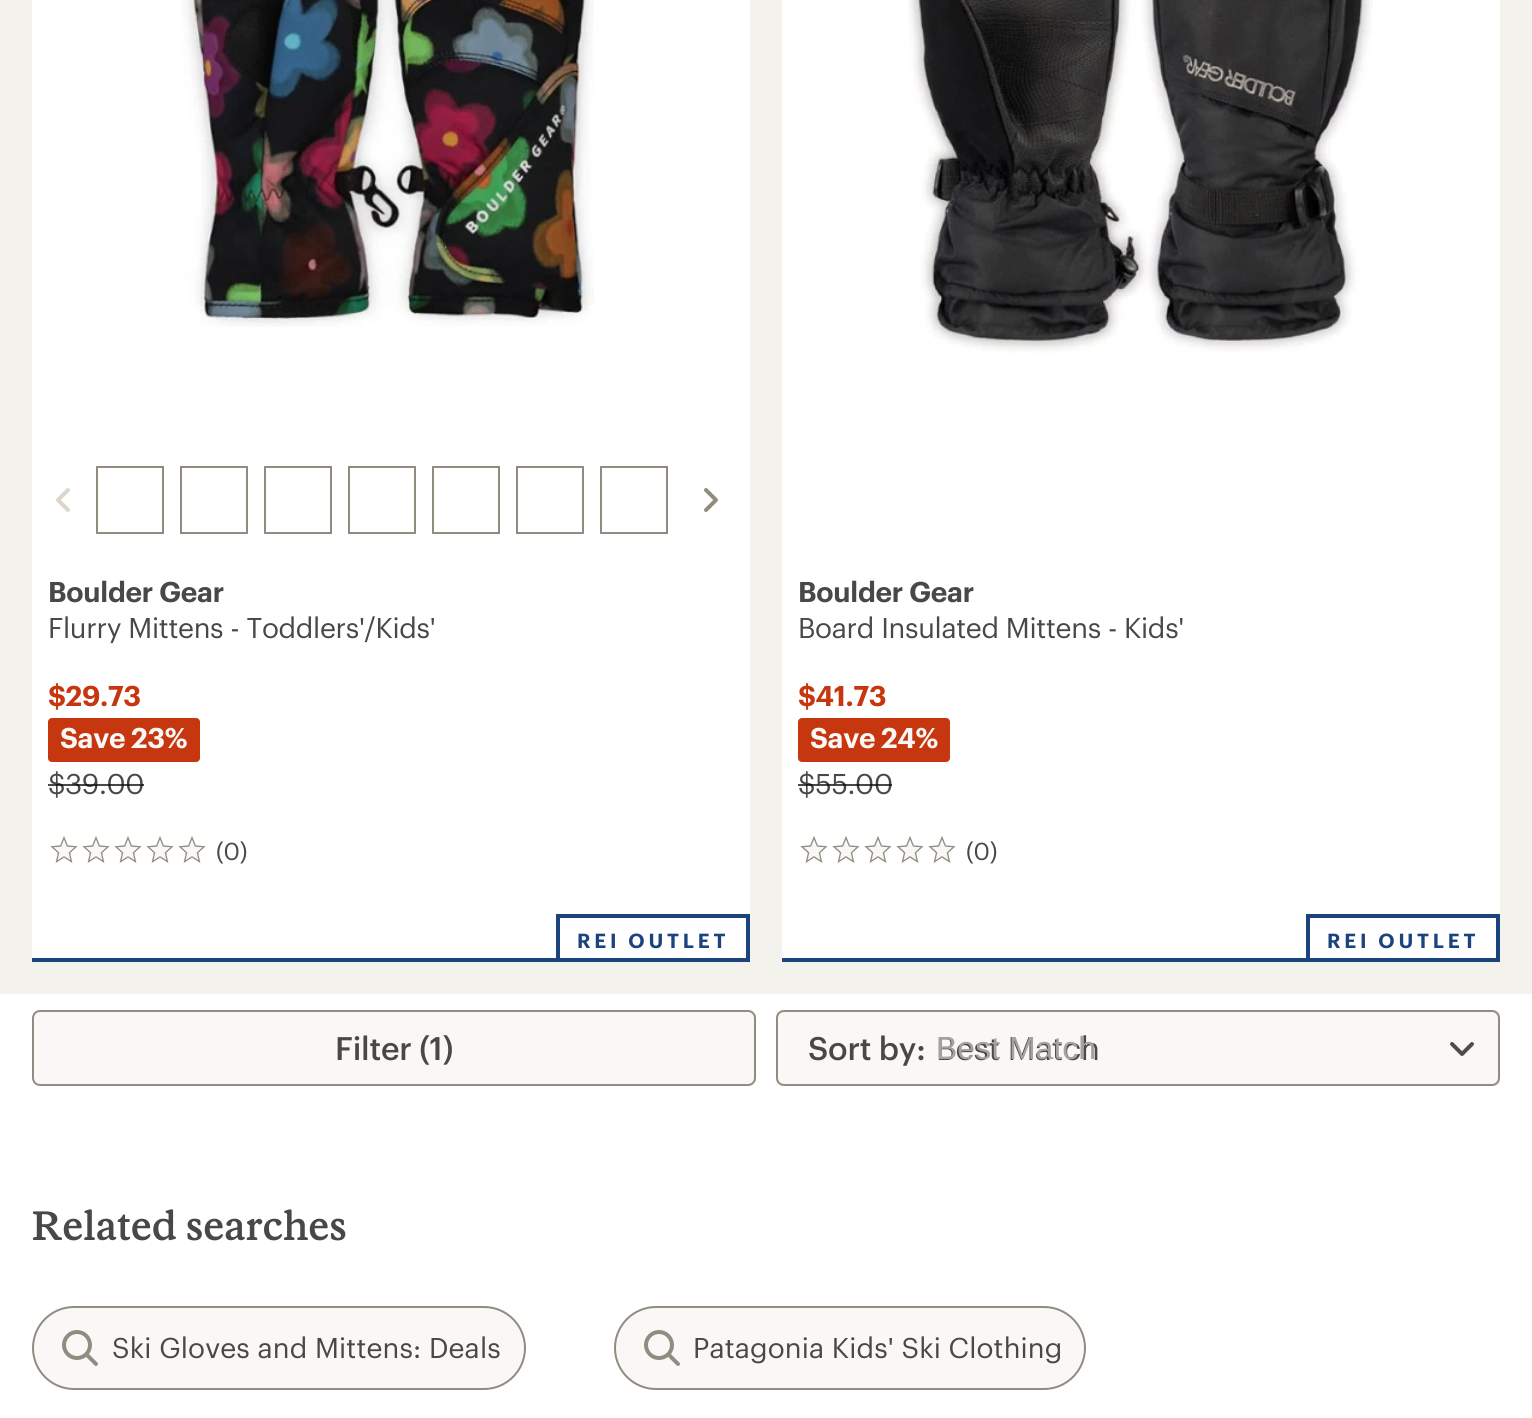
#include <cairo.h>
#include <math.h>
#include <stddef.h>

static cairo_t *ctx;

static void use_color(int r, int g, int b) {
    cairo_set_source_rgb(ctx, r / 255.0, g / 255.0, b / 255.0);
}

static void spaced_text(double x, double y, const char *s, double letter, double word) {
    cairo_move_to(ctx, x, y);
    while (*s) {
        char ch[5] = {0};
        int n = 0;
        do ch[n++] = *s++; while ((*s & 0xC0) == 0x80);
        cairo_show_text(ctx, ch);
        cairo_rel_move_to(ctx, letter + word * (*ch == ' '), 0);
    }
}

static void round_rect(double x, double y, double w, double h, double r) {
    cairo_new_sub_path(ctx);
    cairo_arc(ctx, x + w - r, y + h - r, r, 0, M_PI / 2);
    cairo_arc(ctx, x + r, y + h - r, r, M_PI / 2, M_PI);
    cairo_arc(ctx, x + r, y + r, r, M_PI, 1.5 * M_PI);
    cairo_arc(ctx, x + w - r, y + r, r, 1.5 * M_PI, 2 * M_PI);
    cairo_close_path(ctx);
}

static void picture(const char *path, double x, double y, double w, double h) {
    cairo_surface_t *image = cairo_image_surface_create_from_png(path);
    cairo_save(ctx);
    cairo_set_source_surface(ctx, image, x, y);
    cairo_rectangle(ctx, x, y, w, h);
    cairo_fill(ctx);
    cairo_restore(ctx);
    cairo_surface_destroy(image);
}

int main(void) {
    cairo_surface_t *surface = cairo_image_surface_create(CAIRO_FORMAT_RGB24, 1532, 1418);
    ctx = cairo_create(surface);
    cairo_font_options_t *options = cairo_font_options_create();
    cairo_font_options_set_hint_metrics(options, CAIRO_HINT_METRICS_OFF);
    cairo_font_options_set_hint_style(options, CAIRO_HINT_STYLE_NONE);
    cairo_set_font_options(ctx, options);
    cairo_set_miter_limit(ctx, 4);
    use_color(255, 255, 255);
    cairo_paint(ctx);
    use_color(244, 242, 237);
    cairo_rectangle(ctx, 0, 0, 1532, 994);
    cairo_fill(ctx);
    use_color(255, 255, 255);
    cairo_rectangle(ctx, 32, 0, 718, 958);
    cairo_fill(ctx);
    picture("img1.png", 181, 0, 413, 327);
    picture("img2.png", 56, 488, 14, 24);
    cairo_rectangle(ctx, 97, 467, 66, 66);
    use_color(146, 139, 128);
    cairo_stroke(ctx);
    cairo_rectangle(ctx, 181, 467, 66, 66);
    cairo_stroke(ctx);
    cairo_rectangle(ctx, 265, 467, 66, 66);
    cairo_stroke(ctx);
    cairo_rectangle(ctx, 349, 467, 66, 66);
    cairo_stroke(ctx);
    cairo_rectangle(ctx, 433, 467, 66, 66);
    cairo_stroke(ctx);
    cairo_rectangle(ctx, 517, 467, 66, 66);
    cairo_stroke(ctx);
    cairo_rectangle(ctx, 601, 467, 66, 66);
    cairo_stroke(ctx);
    picture("img3.png", 704, 488, 14, 24);
    cairo_select_font_face(ctx, "Graphik SemiBold", CAIRO_FONT_SLANT_NORMAL, CAIRO_FONT_WEIGHT_NORMAL);
    cairo_set_font_size(ctx, 28);
    use_color(73, 72, 70);
    spaced_text(48, 602, "Boulder Gear", -0.2, 0);
    cairo_select_font_face(ctx, "Graphik", CAIRO_FONT_SLANT_NORMAL, CAIRO_FONT_WEIGHT_NORMAL);
    spaced_text(48, 638, "Flurry Mittens - Toddlers'/Kids'", -0.3, 0);
    cairo_select_font_face(ctx, "Graphik SemiBold", CAIRO_FONT_SLANT_NORMAL, CAIRO_FONT_WEIGHT_NORMAL);
    use_color(199, 55, 15);
    spaced_text(48, 706, "$29.73", -0.3, 0);
    round_rect(48, 718, 152, 44, 4);
    cairo_fill(ctx);
    use_color(249, 248, 246);
    spaced_text(60, 748, "Save 23%", -0.3, 0);
    cairo_select_font_face(ctx, "Graphik", CAIRO_FONT_SLANT_NORMAL, CAIRO_FONT_WEIGHT_NORMAL);
    use_color(73, 72, 70);
    spaced_text(48, 794, "$39.00", -0.3, 0);
    cairo_set_source_rgba(ctx, 0.047, 0.043, 0.031, 0.75);
    cairo_rectangle(ctx, 48, 784, 96, 2);
    cairo_fill(ctx);
    picture("img4.png", 50, 836, 28, 27);
    picture("img4.png", 82, 836, 28, 27);
    picture("img4.png", 114, 836, 28, 27);
    picture("img4.png", 146, 836, 28, 27);
    picture("img4.png", 178, 836, 28, 27);
    cairo_set_font_size(ctx, 24);
    use_color(73, 72, 70);
    spaced_text(216, 860, "(0)", -0.2, 0);
    use_color(27, 67, 126);
    cairo_rectangle(ctx, 32, 958, 718, 4);
    cairo_fill(ctx);
    cairo_rectangle(ctx, 556, 914, 194, 4);
    cairo_fill(ctx);
    cairo_rectangle(ctx, 746, 914, 4, 44);
    cairo_fill(ctx);
    cairo_rectangle(ctx, 556, 914, 4, 44);
    cairo_fill(ctx);
    cairo_select_font_face(ctx, "Graphik SemiBold", CAIRO_FONT_SLANT_NORMAL, CAIRO_FONT_WEIGHT_NORMAL);
    cairo_set_font_size(ctx, 20);
    spaced_text(577, 948, "REI OUTLET", 3.75, 0);
    use_color(255, 255, 255);
    cairo_rectangle(ctx, 782, 0, 718, 958);
    cairo_fill(ctx);
    picture("img5.png", 908, 0, 465, 353);
    cairo_set_font_size(ctx, 28);
    use_color(73, 72, 70);
    spaced_text(798, 602, "Boulder Gear", -0.2, 0);
    cairo_select_font_face(ctx, "Graphik", CAIRO_FONT_SLANT_NORMAL, CAIRO_FONT_WEIGHT_NORMAL);
    spaced_text(798, 638, "Board Insulated Mittens - Kids'", -0.3, 0);
    cairo_select_font_face(ctx, "Graphik SemiBold", CAIRO_FONT_SLANT_NORMAL, CAIRO_FONT_WEIGHT_NORMAL);
    use_color(199, 55, 15);
    spaced_text(798, 706, "$41.73", -0.3, 0);
    round_rect(798, 718, 152, 44, 4);
    cairo_fill(ctx);
    use_color(249, 248, 246);
    spaced_text(810, 748, "Save 24%", -0.3, 0);
    cairo_select_font_face(ctx, "Graphik", CAIRO_FONT_SLANT_NORMAL, CAIRO_FONT_WEIGHT_NORMAL);
    use_color(73, 72, 70);
    spaced_text(798, 794, "$55.00", -0.3, 0);
    cairo_set_source_rgba(ctx, 0.047, 0.043, 0.031, 0.75);
    cairo_rectangle(ctx, 798, 784, 94, 2);
    cairo_fill(ctx);
    picture("img4.png", 800, 836, 28, 27);
    picture("img4.png", 832, 836, 28, 27);
    picture("img4.png", 864, 836, 28, 27);
    picture("img4.png", 896, 836, 28, 27);
    picture("img4.png", 928, 836, 28, 27);
    cairo_set_font_size(ctx, 24);
    use_color(73, 72, 70);
    spaced_text(966, 860, "(0)", -0.2, 0);
    use_color(27, 67, 126);
    cairo_rectangle(ctx, 782, 958, 718, 4);
    cairo_fill(ctx);
    cairo_rectangle(ctx, 1306, 914, 194, 4);
    cairo_fill(ctx);
    cairo_rectangle(ctx, 1496, 914, 4, 44);
    cairo_fill(ctx);
    cairo_rectangle(ctx, 1306, 914, 4, 44);
    cairo_fill(ctx);
    cairo_select_font_face(ctx, "Graphik SemiBold", CAIRO_FONT_SLANT_NORMAL, CAIRO_FONT_WEIGHT_NORMAL);
    cairo_set_font_size(ctx, 20);
    spaced_text(1327, 948, "REI OUTLET", 3.75, 0);
    use_color(249, 248, 246);
    round_rect(33, 1011, 722, 74, 7);
    cairo_fill_preserve(ctx);
    use_color(146, 139, 128);
    cairo_stroke(ctx);
    cairo_select_font_face(ctx, "Graphik Medium", CAIRO_FONT_SLANT_NORMAL, CAIRO_FONT_WEIGHT_NORMAL);
    cairo_set_font_size(ctx, 32);
    use_color(73, 72, 70);
    spaced_text(335, 1060, "Filter (1)", -0.2, 0);
    use_color(249, 248, 246);
    cairo_rectangle(ctx, 776, 1010, 724, 76);
    cairo_fill(ctx);
    use_color(73, 72, 70);
    spaced_text(808, 1060, "Sort by:", -0.2, 0);
    cairo_select_font_face(ctx, "Graphik", CAIRO_FONT_SLANT_NORMAL, CAIRO_FONT_WEIGHT_NORMAL);
    spaced_text(936, 1060, "Best Match", -0.3, 0);
    picture("img6.png", 1450, 1042, 24, 14);
    round_rect(777, 1011, 722, 74, 7);
    use_color(146, 139, 128);
    cairo_stroke(ctx);
    cairo_select_font_face(ctx, "Liberation Sans", CAIRO_FONT_SLANT_NORMAL, CAIRO_FONT_WEIGHT_NORMAL);
    use_color(164, 163, 160);
    cairo_move_to(ctx, 936, 1059);
    cairo_show_text(ctx, "Best Match");
    cairo_select_font_face(ctx, "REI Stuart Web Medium", CAIRO_FONT_SLANT_NORMAL, CAIRO_FONT_WEIGHT_NORMAL);
    cairo_set_font_size(ctx, 40);
    use_color(73, 72, 70);
    cairo_move_to(ctx, 32, 1240);
    cairo_show_text(ctx, "Related searches");
    use_color(249, 248, 246);
    round_rect(33, 1307, 492, 82, 41);
    cairo_fill_preserve(ctx);
    use_color(146, 139, 128);
    cairo_stroke(ctx);
    picture("img7.png", 62, 1330, 36, 36);
    cairo_select_font_face(ctx, "Graphik", CAIRO_FONT_SLANT_NORMAL, CAIRO_FONT_WEIGHT_NORMAL);
    cairo_set_font_size(ctx, 28);
    use_color(73, 72, 70);
    spaced_text(112, 1358, "Ski Gloves and Mittens: Deals", 0.15, 0);
    use_color(249, 248, 246);
    round_rect(615, 1307, 470, 82, 41);
    cairo_fill_preserve(ctx);
    use_color(146, 139, 128);
    cairo_stroke(ctx);
    picture("img7.png", 644, 1330, 36, 36);
    use_color(73, 72, 70);
    spaced_text(693, 1358, "Patagonia Kids' Ski Clothing", 0.15, 0);
    cairo_surface_write_to_png(surface, "result.png");
    cairo_font_options_destroy(options);
    cairo_destroy(ctx);
    cairo_surface_destroy(surface);
    return 0;
}
